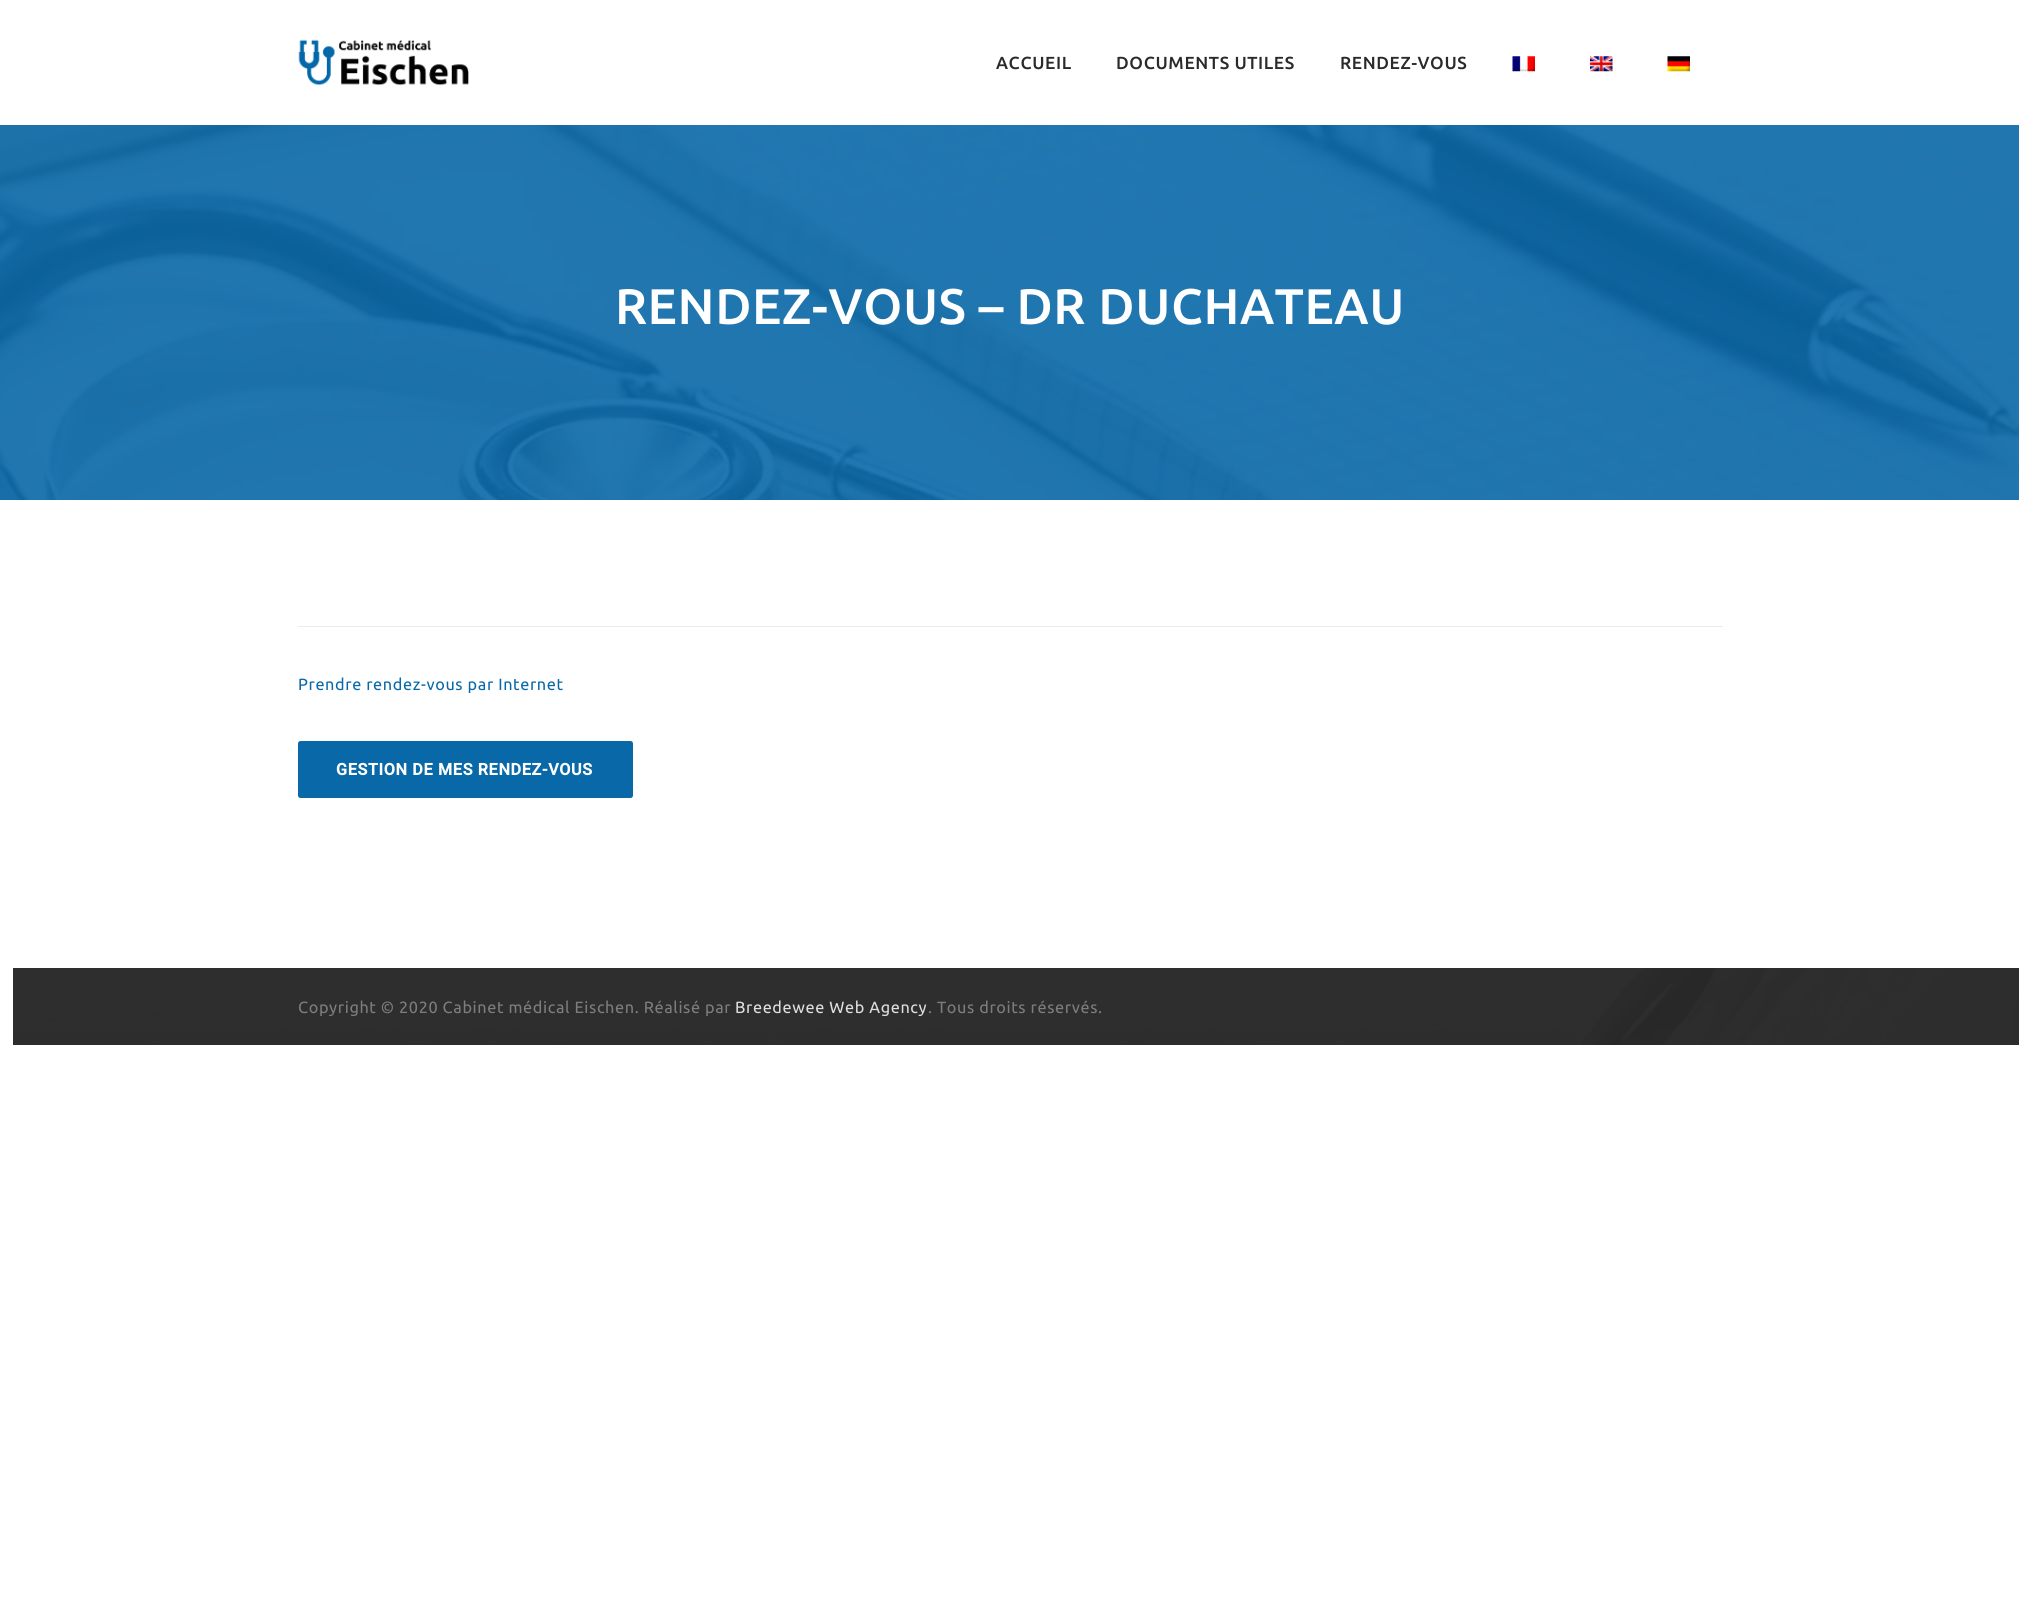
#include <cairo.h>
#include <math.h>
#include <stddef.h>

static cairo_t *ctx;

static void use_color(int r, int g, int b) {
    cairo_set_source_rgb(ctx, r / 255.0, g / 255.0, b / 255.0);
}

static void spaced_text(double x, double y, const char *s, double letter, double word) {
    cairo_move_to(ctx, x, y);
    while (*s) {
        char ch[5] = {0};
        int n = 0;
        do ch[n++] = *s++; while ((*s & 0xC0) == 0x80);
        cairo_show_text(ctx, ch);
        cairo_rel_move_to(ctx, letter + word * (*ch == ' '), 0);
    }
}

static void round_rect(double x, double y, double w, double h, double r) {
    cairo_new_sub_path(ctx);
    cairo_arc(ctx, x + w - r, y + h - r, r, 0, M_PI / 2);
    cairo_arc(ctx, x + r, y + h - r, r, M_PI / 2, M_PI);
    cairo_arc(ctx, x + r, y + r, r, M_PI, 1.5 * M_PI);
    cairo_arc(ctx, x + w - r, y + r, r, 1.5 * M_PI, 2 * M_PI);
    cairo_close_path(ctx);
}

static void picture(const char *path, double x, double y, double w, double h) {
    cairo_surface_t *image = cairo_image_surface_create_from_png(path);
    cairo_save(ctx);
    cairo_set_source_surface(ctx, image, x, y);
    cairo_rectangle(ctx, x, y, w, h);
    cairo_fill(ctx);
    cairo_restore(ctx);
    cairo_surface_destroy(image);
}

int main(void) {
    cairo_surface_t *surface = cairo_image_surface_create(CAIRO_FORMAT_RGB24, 2019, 1607);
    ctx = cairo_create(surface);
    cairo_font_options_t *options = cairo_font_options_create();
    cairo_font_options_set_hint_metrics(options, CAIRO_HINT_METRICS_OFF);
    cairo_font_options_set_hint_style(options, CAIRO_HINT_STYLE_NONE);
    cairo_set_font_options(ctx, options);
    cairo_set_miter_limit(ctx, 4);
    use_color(255, 255, 255);
    cairo_paint(ctx);
    picture("img1.png", 298, 39, 171, 47);
    cairo_select_font_face(ctx, "Ubuntu Medium", CAIRO_FONT_SLANT_NORMAL, CAIRO_FONT_WEIGHT_NORMAL);
    cairo_set_font_size(ctx, 17.5);
    use_color(42, 42, 42);
    spaced_text(996, 69, "ACCUEIL", 0.62, 0);
    spaced_text(1116, 69, "DOCUMENTS UTILES", 0.62, 0);
    spaced_text(1340, 69, "RENDEZ-VOUS", 0.62, 0);
    picture("img2.png", 1512, 56, 23, 16);
    picture("img3.png", 1590, 56, 23, 16);
    picture("img4.png", 1667, 56, 23, 16);
    picture("img5.png", 0, 125, 2019, 375);
    cairo_set_font_size(ctx, 50);
    use_color(255, 255, 255);
    spaced_text(615, 324, "RENDEZ-VOUS – DR DUCHATEAU", 0.62, 0);
    use_color(235, 235, 235);
    cairo_rectangle(ctx, 298, 626, 1425, 1);
    cairo_fill(ctx);
    cairo_select_font_face(ctx, "Ubuntu", CAIRO_FONT_SLANT_NORMAL, CAIRO_FONT_WEIGHT_NORMAL);
    cairo_set_font_size(ctx, 16.25);
    use_color(9, 105, 168);
    spaced_text(298, 690, "Prendre rendez-vous par Internet", 0.62, 0);
    round_rect(298, 741, 335, 57, 2.5);
    cairo_fill(ctx);
    cairo_select_font_face(ctx, "Roboto", CAIRO_FONT_SLANT_NORMAL, CAIRO_FONT_WEIGHT_BOLD);
    use_color(255, 255, 255);
    spaced_text(336, 775, "GESTION DE MES RENDEZ-VOUS", 0.62, 0);
    picture("img6.png", 13, 968, 2006, 77);
    cairo_select_font_face(ctx, "Ubuntu", CAIRO_FONT_SLANT_NORMAL, CAIRO_FONT_WEIGHT_NORMAL);
    use_color(125, 125, 125);
    spaced_text(298, 1013, "Copyright © 2020 Cabinet médical Eischen. Réalisé par", 0.62, 0);
    use_color(223, 223, 223);
    spaced_text(735, 1013, "Breedewee Web Agency", 0.62, 0);
    use_color(125, 125, 125);
    spaced_text(928, 1013, ". Tous droits réservés.", 0.62, 0);
    cairo_surface_write_to_png(surface, "result.png");
    cairo_font_options_destroy(options);
    cairo_destroy(ctx);
    cairo_surface_destroy(surface);
    return 0;
}
